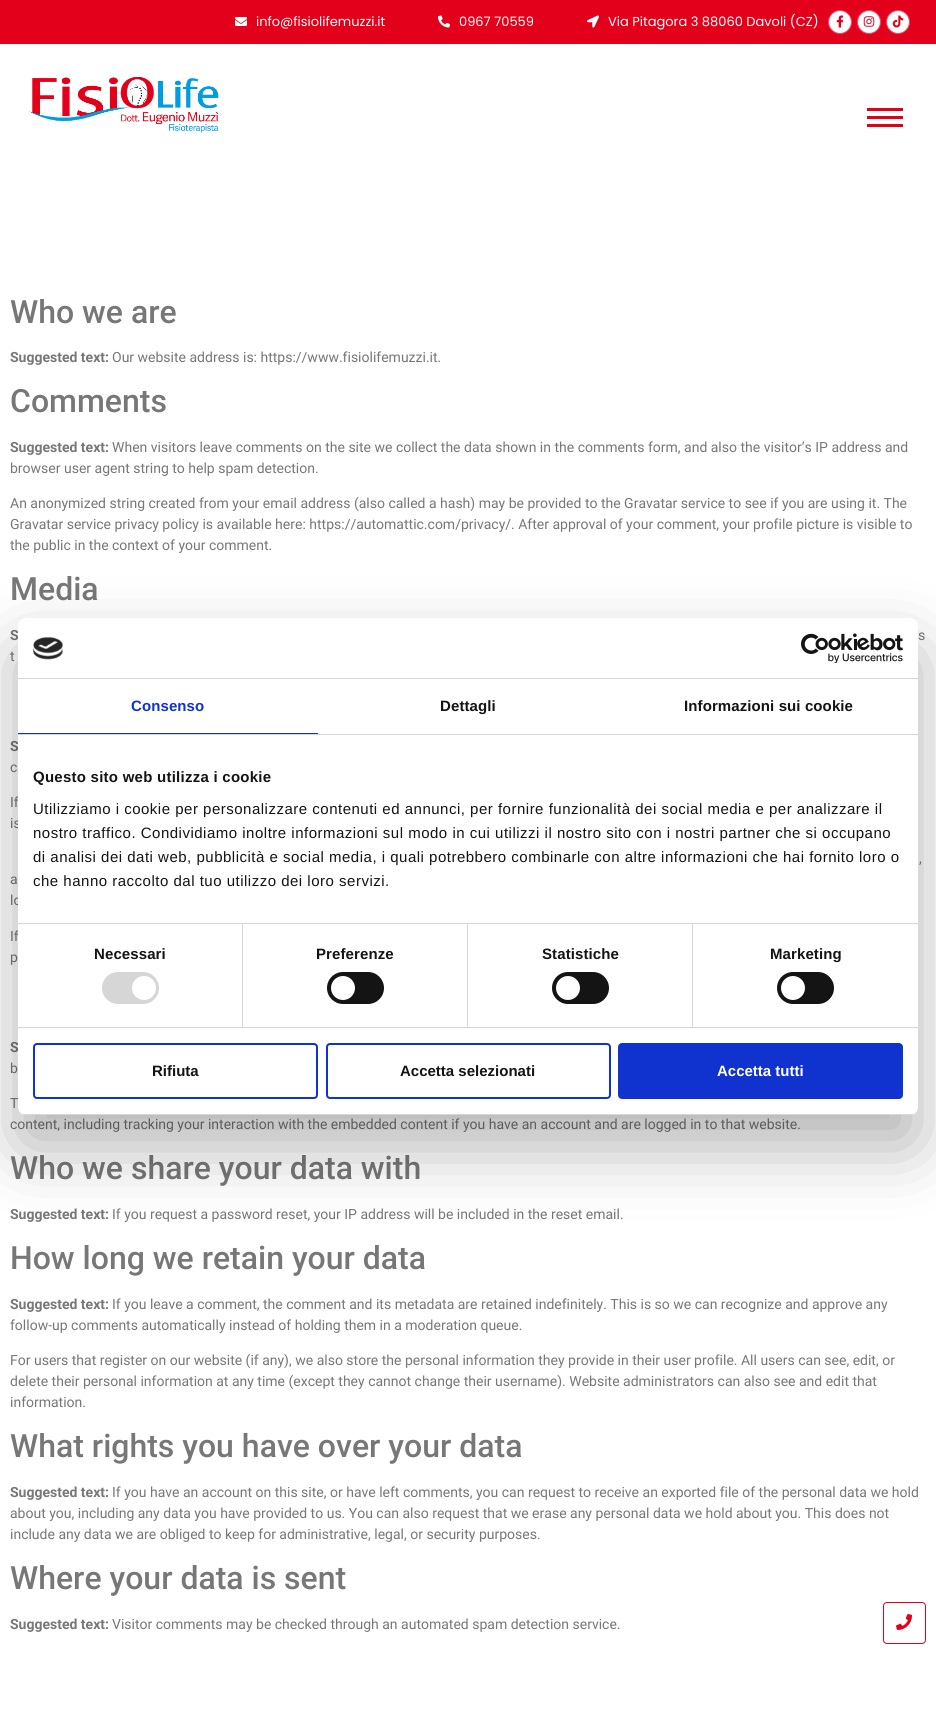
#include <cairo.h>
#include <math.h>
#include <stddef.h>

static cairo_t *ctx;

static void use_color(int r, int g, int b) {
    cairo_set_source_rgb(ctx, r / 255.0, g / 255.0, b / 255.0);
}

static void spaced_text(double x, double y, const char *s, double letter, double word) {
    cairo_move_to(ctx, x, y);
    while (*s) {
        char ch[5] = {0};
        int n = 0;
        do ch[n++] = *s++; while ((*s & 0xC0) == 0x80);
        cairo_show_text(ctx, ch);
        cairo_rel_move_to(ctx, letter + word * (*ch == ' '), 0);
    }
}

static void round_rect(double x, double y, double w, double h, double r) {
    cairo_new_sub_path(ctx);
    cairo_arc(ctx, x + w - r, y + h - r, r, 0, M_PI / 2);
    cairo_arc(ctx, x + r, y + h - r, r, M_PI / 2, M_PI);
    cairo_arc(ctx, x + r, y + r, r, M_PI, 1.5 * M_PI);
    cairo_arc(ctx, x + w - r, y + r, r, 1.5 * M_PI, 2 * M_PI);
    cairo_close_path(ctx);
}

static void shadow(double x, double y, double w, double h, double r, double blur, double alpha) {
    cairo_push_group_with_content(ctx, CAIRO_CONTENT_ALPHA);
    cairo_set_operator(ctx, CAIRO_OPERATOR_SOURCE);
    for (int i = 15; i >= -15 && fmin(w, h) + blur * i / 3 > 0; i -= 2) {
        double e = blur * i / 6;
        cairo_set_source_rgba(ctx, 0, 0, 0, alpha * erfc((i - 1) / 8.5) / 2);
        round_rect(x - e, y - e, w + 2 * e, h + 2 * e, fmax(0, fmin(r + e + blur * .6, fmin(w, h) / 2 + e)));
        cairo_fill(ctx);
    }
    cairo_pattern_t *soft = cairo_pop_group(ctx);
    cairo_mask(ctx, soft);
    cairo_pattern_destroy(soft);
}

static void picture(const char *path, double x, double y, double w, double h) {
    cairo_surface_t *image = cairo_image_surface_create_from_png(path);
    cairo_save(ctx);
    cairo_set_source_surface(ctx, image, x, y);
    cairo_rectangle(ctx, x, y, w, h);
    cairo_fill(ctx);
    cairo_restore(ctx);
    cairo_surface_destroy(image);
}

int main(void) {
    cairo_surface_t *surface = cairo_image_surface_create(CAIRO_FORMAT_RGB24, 936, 1734);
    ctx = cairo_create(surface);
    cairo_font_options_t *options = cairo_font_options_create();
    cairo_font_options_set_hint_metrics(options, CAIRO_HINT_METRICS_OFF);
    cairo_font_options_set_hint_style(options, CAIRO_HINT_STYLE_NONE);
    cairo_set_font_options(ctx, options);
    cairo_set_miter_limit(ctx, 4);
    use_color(255, 255, 255);
    cairo_paint(ctx);
    use_color(226, 0, 26);
    cairo_rectangle(ctx, 0, 0, 936, 44);
    cairo_fill(ctx);
    picture("img1.png", 235, 17, 12, 9);
    cairo_select_font_face(ctx, "Poppins", CAIRO_FONT_SLANT_NORMAL, CAIRO_FONT_WEIGHT_NORMAL);
    cairo_set_font_size(ctx, 13);
    use_color(255, 255, 255);
    cairo_move_to(ctx, 256, 26);
    cairo_show_text(ctx, "info@fisiolifemuzzi.it");
    picture("img2.png", 438, 15, 12, 13);
    cairo_move_to(ctx, 459, 26);
    cairo_show_text(ctx, "0967 70559");
    picture("img3.png", 587, 15, 12, 13);
    cairo_move_to(ctx, 608, 26);
    cairo_show_text(ctx, "Via Pitagora 3 88060 Davoli (CZ)");
    cairo_new_path(ctx);
    cairo_arc(ctx, 840, 22, 11.5, 0, 2 * M_PI);
    cairo_fill_preserve(ctx);
    use_color(248, 67, 101);
    cairo_set_line_width(ctx, 1);
    cairo_stroke(ctx);
    picture("img4.png", 836, 15, 8, 13);
    use_color(255, 255, 255);
    cairo_arc(ctx, 869, 22, 11.5, 0, 2 * M_PI);
    cairo_fill_preserve(ctx);
    use_color(248, 67, 101);
    cairo_stroke(ctx);
    picture("img5.png", 863, 16, 12, 11);
    use_color(255, 255, 255);
    cairo_arc(ctx, 898, 22, 11.5, 0, 2 * M_PI);
    cairo_fill_preserve(ctx);
    use_color(248, 67, 101);
    cairo_stroke(ctx);
    picture("img6.png", 892, 15, 12, 13);
    picture("img7.png", 29, 77, 190, 56);
    use_color(226, 0, 26);
    cairo_rectangle(ctx, 867, 108, 36, 3);
    cairo_fill(ctx);
    cairo_rectangle(ctx, 867, 116, 36, 3);
    cairo_fill(ctx);
    cairo_rectangle(ctx, 867, 124, 36, 3);
    cairo_fill(ctx);
    cairo_select_font_face(ctx, "Roboto Medium", CAIRO_FONT_SLANT_NORMAL, CAIRO_FONT_WEIGHT_NORMAL);
    cairo_set_font_size(ctx, 32);
    use_color(119, 119, 119);
    cairo_move_to(ctx, 10, 323);
    cairo_show_text(ctx, "Who we are");
    cairo_select_font_face(ctx, "Roboto", CAIRO_FONT_SLANT_NORMAL, CAIRO_FONT_WEIGHT_BOLD);
    cairo_set_font_size(ctx, 14);
    cairo_move_to(ctx, 10, 362);
    cairo_show_text(ctx, "Suggested text:");
    cairo_select_font_face(ctx, "Roboto", CAIRO_FONT_SLANT_NORMAL, CAIRO_FONT_WEIGHT_NORMAL);
    cairo_move_to(ctx, 112, 362);
    cairo_show_text(ctx, "Our website address is: https://www.fisiolifemuzzi.it.");
    cairo_select_font_face(ctx, "Roboto Medium", CAIRO_FONT_SLANT_NORMAL, CAIRO_FONT_WEIGHT_NORMAL);
    cairo_set_font_size(ctx, 32);
    cairo_move_to(ctx, 10, 412);
    cairo_show_text(ctx, "Comments");
    cairo_select_font_face(ctx, "Roboto", CAIRO_FONT_SLANT_NORMAL, CAIRO_FONT_WEIGHT_BOLD);
    cairo_set_font_size(ctx, 14);
    cairo_move_to(ctx, 10, 452);
    cairo_show_text(ctx, "Suggested text:");
    cairo_select_font_face(ctx, "Roboto", CAIRO_FONT_SLANT_NORMAL, CAIRO_FONT_WEIGHT_NORMAL);
    cairo_move_to(ctx, 112, 452);
    cairo_show_text(ctx, "When visitors leave comments on the site we collect the data shown in the comments form, and also the visitor’s IP address and");
    cairo_move_to(ctx, 10, 473);
    cairo_show_text(ctx, "browser user agent string to help spam detection.");
    cairo_move_to(ctx, 10, 508);
    cairo_show_text(ctx, "An anonymized string created from your email address (also called a hash) may be provided to the Gravatar service to see if you are using it. The");
    cairo_move_to(ctx, 10, 529);
    cairo_show_text(ctx, "Gravatar service privacy policy is available here: https://automattic.com/privacy/. After approval of your comment, your profile picture is visible to");
    cairo_move_to(ctx, 10, 550);
    cairo_show_text(ctx, "the public in the context of your comment.");
    cairo_select_font_face(ctx, "Roboto Medium", CAIRO_FONT_SLANT_NORMAL, CAIRO_FONT_WEIGHT_NORMAL);
    cairo_set_font_size(ctx, 32);
    cairo_move_to(ctx, 10, 600);
    cairo_show_text(ctx, "Media");
    cairo_select_font_face(ctx, "Roboto", CAIRO_FONT_SLANT_NORMAL, CAIRO_FONT_WEIGHT_BOLD);
    cairo_set_font_size(ctx, 14);
    cairo_move_to(ctx, 10, 640);
    cairo_show_text(ctx, "S");
    cairo_select_font_face(ctx, "Roboto", CAIRO_FONT_SLANT_NORMAL, CAIRO_FONT_WEIGHT_NORMAL);
    cairo_move_to(ctx, 918, 640);
    cairo_show_text(ctx, "s");
    cairo_move_to(ctx, 10, 661);
    cairo_show_text(ctx, "t");
    cairo_select_font_face(ctx, "Roboto", CAIRO_FONT_SLANT_NORMAL, CAIRO_FONT_WEIGHT_BOLD);
    cairo_move_to(ctx, 10, 751);
    cairo_show_text(ctx, "S");
    cairo_select_font_face(ctx, "Roboto", CAIRO_FONT_SLANT_NORMAL, CAIRO_FONT_WEIGHT_NORMAL);
    cairo_move_to(ctx, 10, 772);
    cairo_show_text(ctx, "c");
    cairo_move_to(ctx, 10, 807);
    cairo_show_text(ctx, "If");
    cairo_move_to(ctx, 10, 828);
    cairo_show_text(ctx, "is");
    cairo_move_to(ctx, 919, 863);
    cairo_show_text(ctx, ",");
    cairo_move_to(ctx, 10, 884);
    cairo_show_text(ctx, "a");
    cairo_move_to(ctx, 10, 905);
    cairo_show_text(ctx, "lo");
    cairo_move_to(ctx, 10, 941);
    cairo_show_text(ctx, "If");
    cairo_move_to(ctx, 10, 962);
    cairo_show_text(ctx, "p");
    cairo_select_font_face(ctx, "Roboto", CAIRO_FONT_SLANT_NORMAL, CAIRO_FONT_WEIGHT_BOLD);
    cairo_move_to(ctx, 10, 1052);
    cairo_show_text(ctx, "S");
    cairo_select_font_face(ctx, "Roboto", CAIRO_FONT_SLANT_NORMAL, CAIRO_FONT_WEIGHT_NORMAL);
    cairo_move_to(ctx, 10, 1073);
    cairo_show_text(ctx, "b");
    cairo_move_to(ctx, 10, 1108);
    cairo_show_text(ctx, "T");
    cairo_move_to(ctx, 10, 1129);
    cairo_show_text(ctx, "content, including tracking your interaction with the embedded content if you have an account and are logged in to that website.");
    cairo_select_font_face(ctx, "Roboto Medium", CAIRO_FONT_SLANT_NORMAL, CAIRO_FONT_WEIGHT_NORMAL);
    cairo_set_font_size(ctx, 32);
    cairo_move_to(ctx, 10, 1179);
    cairo_show_text(ctx, "Who we share your data with");
    cairo_select_font_face(ctx, "Roboto", CAIRO_FONT_SLANT_NORMAL, CAIRO_FONT_WEIGHT_BOLD);
    cairo_set_font_size(ctx, 14);
    cairo_move_to(ctx, 10, 1219);
    cairo_show_text(ctx, "Suggested text:");
    cairo_select_font_face(ctx, "Roboto", CAIRO_FONT_SLANT_NORMAL, CAIRO_FONT_WEIGHT_NORMAL);
    cairo_move_to(ctx, 112, 1219);
    cairo_show_text(ctx, "If you request a password reset, your IP address will be included in the reset email.");
    cairo_select_font_face(ctx, "Roboto Medium", CAIRO_FONT_SLANT_NORMAL, CAIRO_FONT_WEIGHT_NORMAL);
    cairo_set_font_size(ctx, 32);
    cairo_move_to(ctx, 10, 1269);
    cairo_show_text(ctx, "How long we retain your data");
    cairo_select_font_face(ctx, "Roboto", CAIRO_FONT_SLANT_NORMAL, CAIRO_FONT_WEIGHT_BOLD);
    cairo_set_font_size(ctx, 14);
    cairo_move_to(ctx, 10, 1309);
    cairo_show_text(ctx, "Suggested text:");
    cairo_select_font_face(ctx, "Roboto", CAIRO_FONT_SLANT_NORMAL, CAIRO_FONT_WEIGHT_NORMAL);
    cairo_move_to(ctx, 112, 1309);
    cairo_show_text(ctx, "If you leave a comment, the comment and its metadata are retained indefinitely. This is so we can recognize and approve any");
    cairo_move_to(ctx, 10, 1330);
    cairo_show_text(ctx, "follow-up comments automatically instead of holding them in a moderation queue.");
    cairo_move_to(ctx, 10, 1365);
    cairo_show_text(ctx, "For users that register on our website (if any), we also store the personal information they provide in their user profile. All users can see, edit, or");
    cairo_move_to(ctx, 10, 1386);
    cairo_show_text(ctx, "delete their personal information at any time (except they cannot change their username). Website administrators can also see and edit that");
    cairo_move_to(ctx, 10, 1407);
    cairo_show_text(ctx, "information.");
    cairo_select_font_face(ctx, "Roboto Medium", CAIRO_FONT_SLANT_NORMAL, CAIRO_FONT_WEIGHT_NORMAL);
    cairo_set_font_size(ctx, 32);
    cairo_move_to(ctx, 10, 1457);
    cairo_show_text(ctx, "What rights you have over your data");
    cairo_select_font_face(ctx, "Roboto", CAIRO_FONT_SLANT_NORMAL, CAIRO_FONT_WEIGHT_BOLD);
    cairo_set_font_size(ctx, 14);
    cairo_move_to(ctx, 10, 1497);
    cairo_show_text(ctx, "Suggested text:");
    cairo_select_font_face(ctx, "Roboto", CAIRO_FONT_SLANT_NORMAL, CAIRO_FONT_WEIGHT_NORMAL);
    cairo_move_to(ctx, 112, 1497);
    cairo_show_text(ctx, "If you have an account on this site, or have left comments, you can request to receive an exported file of the personal data we hold");
    cairo_move_to(ctx, 10, 1518);
    cairo_show_text(ctx, "about you, including any data you have provided to us. You can also request that we erase any personal data we hold about you. This does not");
    cairo_move_to(ctx, 10, 1539);
    cairo_show_text(ctx, "include any data we are obliged to keep for administrative, legal, or security purposes.");
    cairo_select_font_face(ctx, "Roboto Medium", CAIRO_FONT_SLANT_NORMAL, CAIRO_FONT_WEIGHT_NORMAL);
    cairo_set_font_size(ctx, 32);
    cairo_move_to(ctx, 10, 1589);
    cairo_show_text(ctx, "Where your data is sent");
    cairo_select_font_face(ctx, "Roboto", CAIRO_FONT_SLANT_NORMAL, CAIRO_FONT_WEIGHT_BOLD);
    cairo_set_font_size(ctx, 14);
    cairo_move_to(ctx, 10, 1629);
    cairo_show_text(ctx, "Suggested text:");
    cairo_select_font_face(ctx, "Roboto", CAIRO_FONT_SLANT_NORMAL, CAIRO_FONT_WEIGHT_NORMAL);
    cairo_move_to(ctx, 112, 1629);
    cairo_show_text(ctx, "Visitor comments may be checked through an automated spam detection service.");
    use_color(0, 0, 0);
    shadow(18, 650, 900, 497, 8, 34, 0.3);
    use_color(255, 255, 255);
    round_rect(18, 618, 900, 497, 8);
    cairo_fill(ctx);
    use_color(214, 214, 214);
    cairo_rectangle(ctx, 18, 678, 900, 1);
    cairo_fill(ctx);
    picture("img8.png", 33, 637, 30, 23);
    picture("img9.png", 801, 633, 102, 30);
    cairo_rectangle(ctx, 18, 734, 900, 1);
    cairo_fill(ctx);
    use_color(16, 50, 207);
    cairo_rectangle(ctx, 18, 733, 300, 1);
    cairo_fill(ctx);
    cairo_select_font_face(ctx, "Liberation Sans", CAIRO_FONT_SLANT_NORMAL, CAIRO_FONT_WEIGHT_BOLD);
    cairo_set_font_size(ctx, 15);
    spaced_text(131, 711, "Consenso", 0.1, 0);
    use_color(20, 20, 20);
    spaced_text(440, 711, "Dettagli", 0.1, 0);
    spaced_text(684, 711, "Informazioni sui cookie", 0.1, 0);
    use_color(214, 214, 214);
    cairo_rectangle(ctx, 18, 923, 900, 1);
    cairo_fill(ctx);
    use_color(20, 20, 20);
    spaced_text(33, 782, "Questo sito web utilizza i cookie", 0.25, 0);
    cairo_select_font_face(ctx, "Liberation Sans", CAIRO_FONT_SLANT_NORMAL, CAIRO_FONT_WEIGHT_NORMAL);
    spaced_text(33, 814, "Utilizziamo i cookie per personalizzare contenuti ed annunci, per fornire funzionalità dei social media e per analizzare il", 0.5, 0);
    spaced_text(33, 838, "nostro traffico. Condividiamo inoltre informazioni sul modo in cui utilizzi il nostro sito con i nostri partner che si occupano", 0.5, 0);
    spaced_text(33, 862, "di analisi dei dati web, pubblicità e social media, i quali potrebbero combinarle con altre informazioni che hai fornito loro o", 0.5, 0);
    spaced_text(33, 886, "che hanno raccolto dal tuo utilizzo dei loro servizi.", 0.5, 0);
    use_color(214, 214, 214);
    cairo_rectangle(ctx, 18, 1027, 900, 1);
    cairo_fill(ctx);
    cairo_rectangle(ctx, 242, 924, 1, 103);
    cairo_fill(ctx);
    cairo_select_font_face(ctx, "Liberation Sans", CAIRO_FONT_SLANT_NORMAL, CAIRO_FONT_WEIGHT_BOLD);
    use_color(20, 20, 20);
    spaced_text(94, 959, "Necessari", 0.1, 0);
    use_color(214, 214, 214);
    round_rect(102, 972, 57, 32, 16);
    cairo_fill(ctx);
    use_color(255, 255, 255);
    cairo_arc(ctx, 144, 988, 12, 0, 2 * M_PI);
    cairo_fill(ctx);
    use_color(214, 214, 214);
    cairo_rectangle(ctx, 467, 924, 1, 103);
    cairo_fill(ctx);
    use_color(20, 20, 20);
    spaced_text(316, 959, "Preferenze", 0.1, 0);
    round_rect(327, 972, 57, 32, 16);
    cairo_fill(ctx);
    use_color(255, 255, 255);
    cairo_arc(ctx, 343, 988, 12, 0, 2 * M_PI);
    cairo_fill(ctx);
    use_color(214, 214, 214);
    cairo_rectangle(ctx, 692, 924, 1, 103);
    cairo_fill(ctx);
    use_color(20, 20, 20);
    spaced_text(542, 959, "Statistiche", 0.1, 0);
    round_rect(552, 972, 57, 32, 16);
    cairo_fill(ctx);
    use_color(255, 255, 255);
    cairo_arc(ctx, 568, 988, 12, 0, 2 * M_PI);
    cairo_fill(ctx);
    use_color(20, 20, 20);
    spaced_text(770, 959, "Marketing", 0.1, 0);
    round_rect(777, 972, 57, 32, 16);
    cairo_fill(ctx);
    use_color(255, 255, 255);
    cairo_arc(ctx, 793, 988, 12, 0, 2 * M_PI);
    cairo_fill(ctx);
    cairo_save(ctx);
    round_rect(18, 618, 900, 497, 8);
    cairo_clip(ctx);
    use_color(214, 214, 214);
    cairo_rectangle(ctx, 18, 1114, 900, 1);
    cairo_fill(ctx);
    cairo_restore(ctx);
    round_rect(34, 1044, 283, 54, 3);
    use_color(16, 50, 207);
    cairo_set_line_width(ctx, 2);
    cairo_stroke(ctx);
    use_color(20, 20, 20);
    cairo_move_to(ctx, 152, 1076);
    cairo_show_text(ctx, "Rifiuta");
    round_rect(327, 1044, 283, 54, 3);
    use_color(16, 50, 207);
    cairo_stroke(ctx);
    use_color(20, 20, 20);
    cairo_move_to(ctx, 400, 1076);
    cairo_show_text(ctx, "Accetta selezionati");
    use_color(16, 50, 207);
    round_rect(619, 1044, 283, 54, 3);
    cairo_fill_preserve(ctx);
    cairo_stroke(ctx);
    use_color(255, 255, 255);
    cairo_move_to(ctx, 717, 1076);
    cairo_show_text(ctx, "Accetta tutti");
    round_rect(883.5, 1602.5, 42, 41, 3.5);
    use_color(226, 0, 26);
    cairo_set_line_width(ctx, 1);
    cairo_stroke(ctx);
    picture("img10.png", 896, 1614, 16, 16);
    cairo_surface_write_to_png(surface, "result.png");
    cairo_font_options_destroy(options);
    cairo_destroy(ctx);
    cairo_surface_destroy(surface);
    return 0;
}
